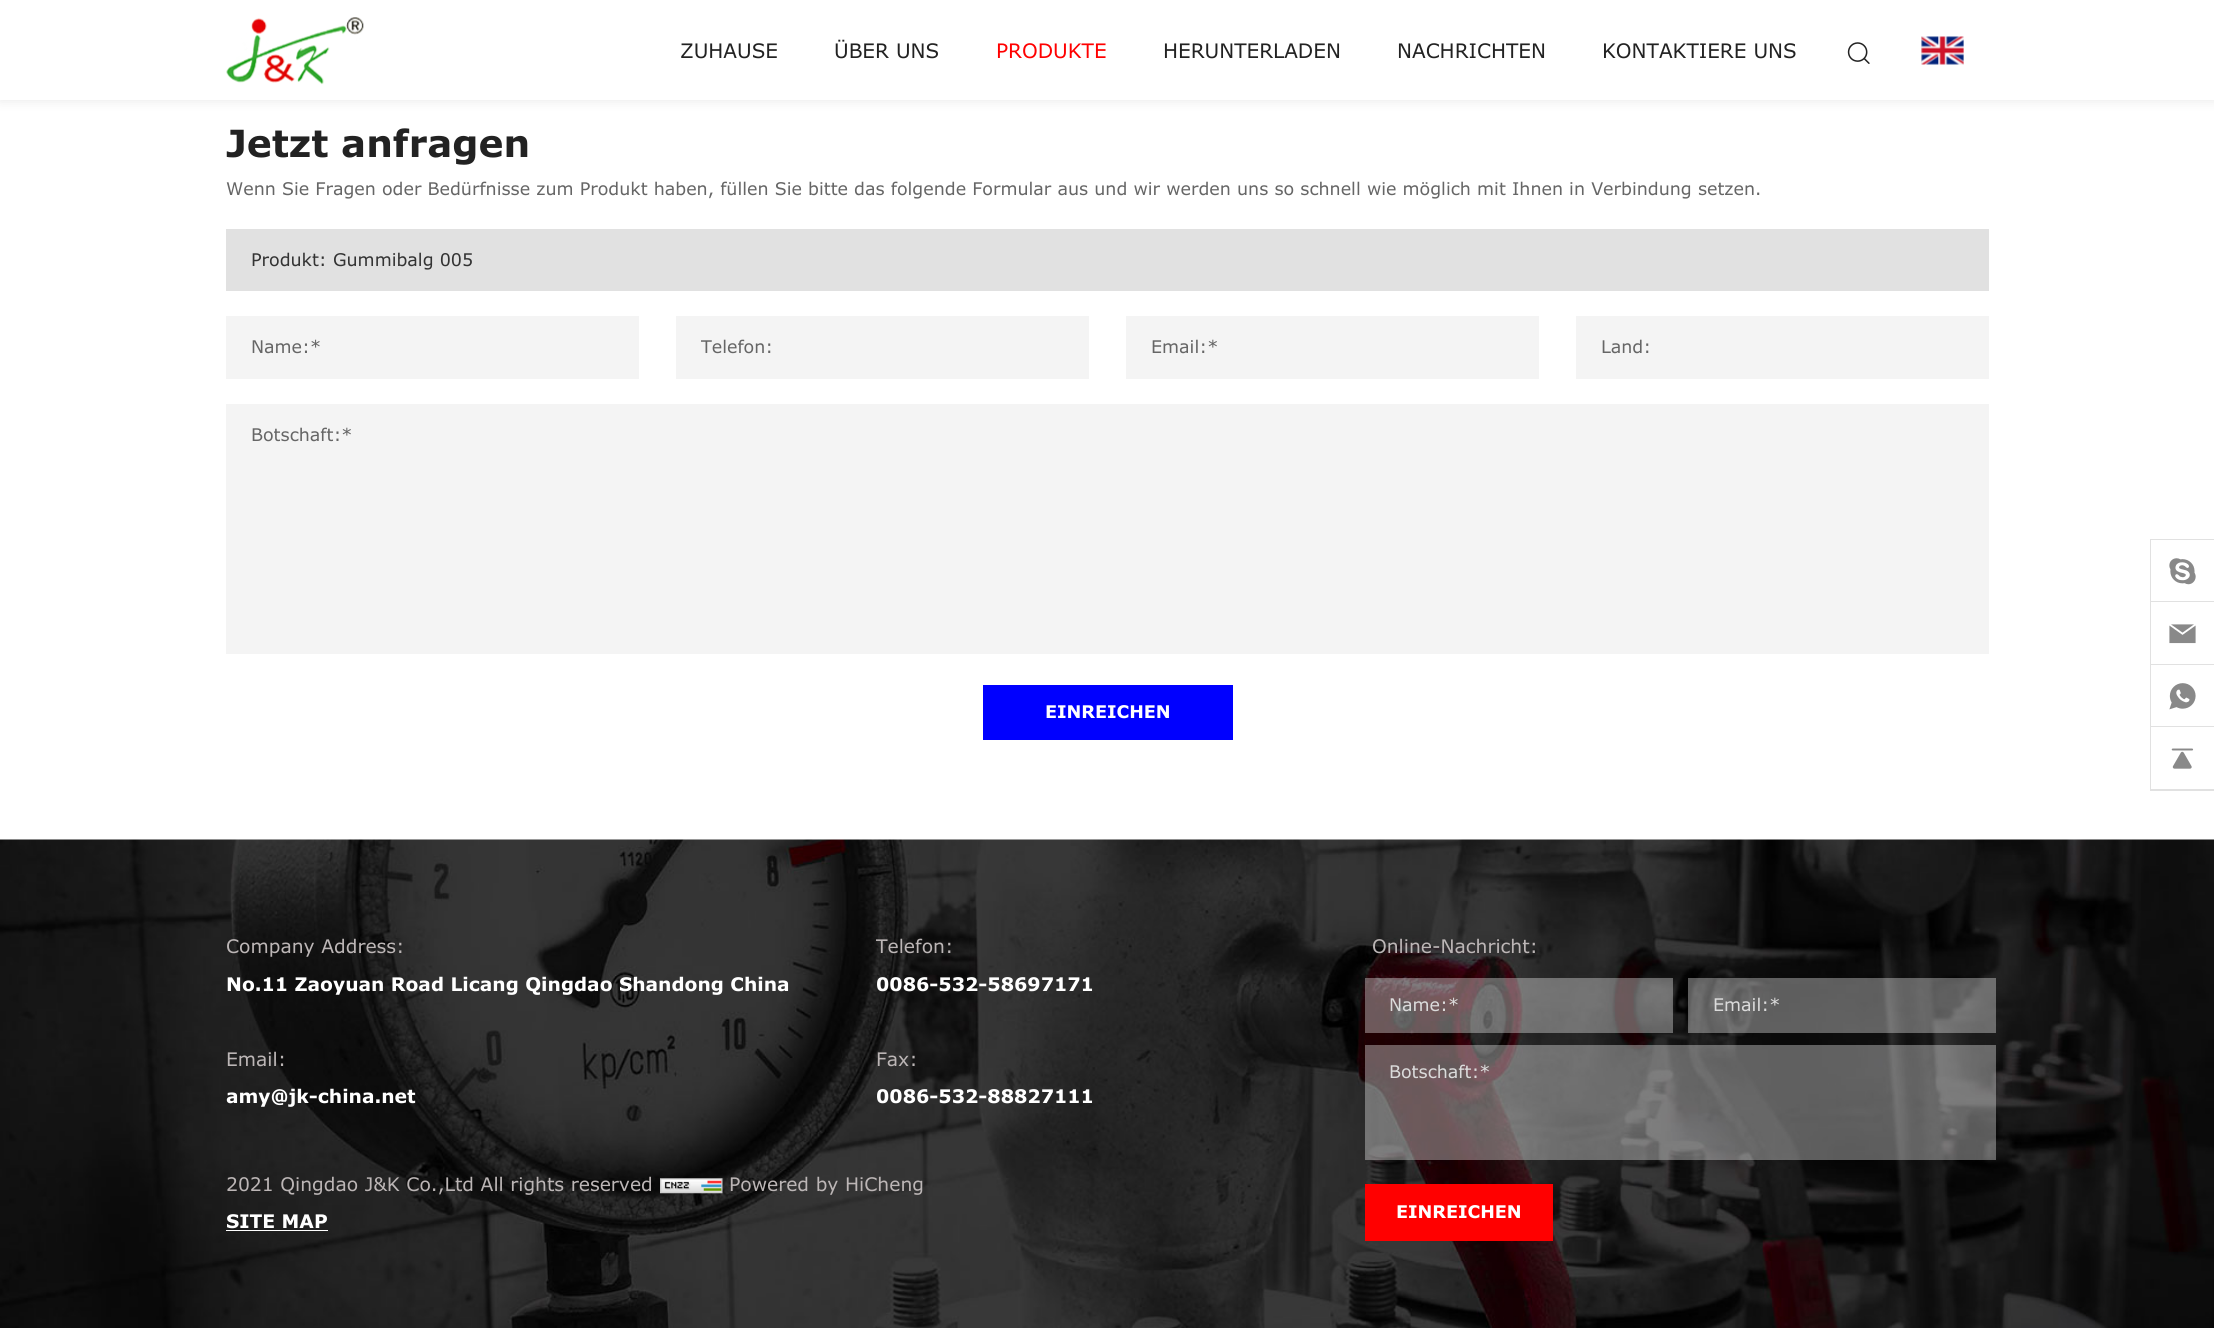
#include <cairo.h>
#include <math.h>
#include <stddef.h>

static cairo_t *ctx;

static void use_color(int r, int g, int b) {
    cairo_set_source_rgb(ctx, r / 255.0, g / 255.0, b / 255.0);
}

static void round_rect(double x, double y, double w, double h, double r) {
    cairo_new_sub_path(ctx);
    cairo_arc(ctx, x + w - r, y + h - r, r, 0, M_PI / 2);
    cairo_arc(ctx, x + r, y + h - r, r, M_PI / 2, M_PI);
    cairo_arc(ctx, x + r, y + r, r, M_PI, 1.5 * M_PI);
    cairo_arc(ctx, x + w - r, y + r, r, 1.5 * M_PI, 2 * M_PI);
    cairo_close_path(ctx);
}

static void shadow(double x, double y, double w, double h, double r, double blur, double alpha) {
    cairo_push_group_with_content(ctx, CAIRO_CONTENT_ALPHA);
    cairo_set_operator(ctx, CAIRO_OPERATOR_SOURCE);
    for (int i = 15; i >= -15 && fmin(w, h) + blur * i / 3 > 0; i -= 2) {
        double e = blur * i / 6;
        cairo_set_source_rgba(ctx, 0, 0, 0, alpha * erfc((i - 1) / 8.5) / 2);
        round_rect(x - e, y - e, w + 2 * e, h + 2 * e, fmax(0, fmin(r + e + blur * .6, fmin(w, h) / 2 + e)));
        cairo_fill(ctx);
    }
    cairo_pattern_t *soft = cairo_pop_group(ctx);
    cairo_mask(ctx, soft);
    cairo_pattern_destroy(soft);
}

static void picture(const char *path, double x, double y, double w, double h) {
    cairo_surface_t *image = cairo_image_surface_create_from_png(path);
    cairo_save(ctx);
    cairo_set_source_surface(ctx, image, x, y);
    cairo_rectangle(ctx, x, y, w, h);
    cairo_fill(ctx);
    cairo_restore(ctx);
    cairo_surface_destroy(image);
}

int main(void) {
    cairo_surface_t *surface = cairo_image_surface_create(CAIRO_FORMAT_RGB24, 2214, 1328);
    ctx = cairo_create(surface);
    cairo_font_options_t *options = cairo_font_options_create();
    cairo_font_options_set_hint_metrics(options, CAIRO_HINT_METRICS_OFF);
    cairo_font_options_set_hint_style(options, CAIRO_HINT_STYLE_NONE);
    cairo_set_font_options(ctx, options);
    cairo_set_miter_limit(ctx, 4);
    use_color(255, 255, 255);
    cairo_paint(ctx);
    use_color(0, 0, 0);
    shadow(0, 0, 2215, 100, 0, 6, 0.1);
    use_color(255, 255, 255);
    cairo_rectangle(ctx, 0, 0, 2214, 100);
    cairo_fill(ctx);
    picture("img1.png", 226, 17, 138, 68);
    cairo_select_font_face(ctx, "Verdana", CAIRO_FONT_SLANT_NORMAL, CAIRO_FONT_WEIGHT_NORMAL);
    cairo_set_font_size(ctx, 20);
    use_color(34, 34, 34);
    cairo_move_to(ctx, 680, 58);
    cairo_show_text(ctx, "ZUHAUSE");
    cairo_move_to(ctx, 834, 58);
    cairo_show_text(ctx, "ÜBER UNS");
    use_color(255, 0, 0);
    cairo_move_to(ctx, 996, 58);
    cairo_show_text(ctx, "PRODUKTE");
    use_color(34, 34, 34);
    cairo_move_to(ctx, 1163, 58);
    cairo_show_text(ctx, "HERUNTERLADEN");
    cairo_move_to(ctx, 1397, 58);
    cairo_show_text(ctx, "NACHRICHTEN");
    cairo_move_to(ctx, 1602, 58);
    cairo_show_text(ctx, "KONTAKTIERE UNS");
    picture("img2.png", 1847, 42, 23, 22);
    picture("img3.png", 1921, 36, 43, 29);
    cairo_select_font_face(ctx, "Verdana", CAIRO_FONT_SLANT_NORMAL, CAIRO_FONT_WEIGHT_BOLD);
    cairo_set_font_size(ctx, 37.5);
    cairo_move_to(ctx, 226, 157);
    cairo_show_text(ctx, "Jetzt anfragen");
    cairo_select_font_face(ctx, "Verdana", CAIRO_FONT_SLANT_NORMAL, CAIRO_FONT_WEIGHT_NORMAL);
    cairo_set_font_size(ctx, 17.5);
    use_color(102, 102, 102);
    cairo_move_to(ctx, 226, 195);
    cairo_show_text(ctx, "Wenn Sie Fragen oder Bedürfnisse zum Produkt haben, füllen Sie bitte das folgende Formular aus und wir werden uns so schnell wie möglich mit Ihnen in Verbindung setzen.");
    use_color(225, 225, 225);
    cairo_rectangle(ctx, 226, 229, 1763, 62);
    cairo_fill(ctx);
    use_color(51, 51, 51);
    cairo_move_to(ctx, 251, 266);
    cairo_show_text(ctx, "Produkt: Gummibalg 005");
    use_color(244, 244, 244);
    cairo_rectangle(ctx, 226, 316, 413, 63);
    cairo_fill(ctx);
    use_color(102, 102, 102);
    cairo_move_to(ctx, 251, 353);
    cairo_show_text(ctx, "Name:*");
    use_color(244, 244, 244);
    cairo_rectangle(ctx, 676, 316, 413, 63);
    cairo_fill(ctx);
    use_color(102, 102, 102);
    cairo_move_to(ctx, 701, 353);
    cairo_show_text(ctx, "Telefon:");
    use_color(244, 244, 244);
    cairo_rectangle(ctx, 1126, 316, 413, 63);
    cairo_fill(ctx);
    use_color(102, 102, 102);
    cairo_move_to(ctx, 1151, 353);
    cairo_show_text(ctx, "Email:*");
    use_color(244, 244, 244);
    cairo_rectangle(ctx, 1576, 316, 413, 63);
    cairo_fill(ctx);
    use_color(102, 102, 102);
    cairo_move_to(ctx, 1601, 353);
    cairo_show_text(ctx, "Land:");
    use_color(244, 244, 244);
    cairo_rectangle(ctx, 226, 404, 1763, 250);
    cairo_fill(ctx);
    use_color(102, 102, 102);
    cairo_move_to(ctx, 251, 441);
    cairo_show_text(ctx, "Botschaft:*");
    use_color(0, 0, 255);
    cairo_rectangle(ctx, 983, 685, 250, 55);
    cairo_fill(ctx);
    cairo_select_font_face(ctx, "Verdana", CAIRO_FONT_SLANT_NORMAL, CAIRO_FONT_WEIGHT_BOLD);
    use_color(255, 255, 255);
    cairo_move_to(ctx, 1045, 718);
    cairo_show_text(ctx, "EINREICHEN");
    cairo_rectangle(ctx, 2150.5, 539.5, 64, 251);
    use_color(225, 225, 225);
    cairo_set_line_width(ctx, 1);
    cairo_stroke(ctx);
    cairo_rectangle(ctx, 2151, 601, 63, 1);
    cairo_fill(ctx);
    picture("img4.png", 2169, 558, 27, 27);
    cairo_rectangle(ctx, 2151, 664, 63, 1);
    cairo_fill(ctx);
    picture("img5.png", 2169, 624, 27, 20);
    cairo_rectangle(ctx, 2151, 726, 63, 1);
    cairo_fill(ctx);
    picture("img6.png", 2169, 683, 27, 27);
    cairo_rectangle(ctx, 2151, 789, 63, 1);
    cairo_fill(ctx);
    picture("img7.png", 2171, 748, 23, 21);
    picture("img8.png", 0, 839, 2214, 489);
    cairo_select_font_face(ctx, "Verdana", CAIRO_FONT_SLANT_NORMAL, CAIRO_FONT_WEIGHT_NORMAL);
    cairo_set_font_size(ctx, 18.75);
    use_color(188, 182, 182);
    cairo_move_to(ctx, 226, 953);
    cairo_show_text(ctx, "Company Address:");
    cairo_select_font_face(ctx, "Verdana", CAIRO_FONT_SLANT_NORMAL, CAIRO_FONT_WEIGHT_BOLD);
    use_color(255, 255, 255);
    cairo_move_to(ctx, 226, 991);
    cairo_show_text(ctx, "No.11 Zaoyuan Road Licang Qingdao Shandong China");
    cairo_select_font_face(ctx, "Verdana", CAIRO_FONT_SLANT_NORMAL, CAIRO_FONT_WEIGHT_NORMAL);
    use_color(188, 182, 182);
    cairo_move_to(ctx, 876, 953);
    cairo_show_text(ctx, "Telefon:");
    cairo_select_font_face(ctx, "Verdana", CAIRO_FONT_SLANT_NORMAL, CAIRO_FONT_WEIGHT_BOLD);
    use_color(255, 255, 255);
    cairo_move_to(ctx, 876, 991);
    cairo_show_text(ctx, "0086-532-58697171");
    cairo_select_font_face(ctx, "Verdana", CAIRO_FONT_SLANT_NORMAL, CAIRO_FONT_WEIGHT_NORMAL);
    use_color(188, 182, 182);
    cairo_move_to(ctx, 226, 1066);
    cairo_show_text(ctx, "Email:");
    cairo_select_font_face(ctx, "Verdana", CAIRO_FONT_SLANT_NORMAL, CAIRO_FONT_WEIGHT_BOLD);
    use_color(255, 255, 255);
    cairo_move_to(ctx, 226, 1103);
    cairo_show_text(ctx, "amy@jk-china.net");
    cairo_select_font_face(ctx, "Verdana", CAIRO_FONT_SLANT_NORMAL, CAIRO_FONT_WEIGHT_NORMAL);
    use_color(188, 182, 182);
    cairo_move_to(ctx, 876, 1066);
    cairo_show_text(ctx, "Fax:");
    cairo_select_font_face(ctx, "Verdana", CAIRO_FONT_SLANT_NORMAL, CAIRO_FONT_WEIGHT_BOLD);
    use_color(255, 255, 255);
    cairo_move_to(ctx, 876, 1103);
    cairo_show_text(ctx, "0086-532-88827111");
    cairo_select_font_face(ctx, "Verdana", CAIRO_FONT_SLANT_NORMAL, CAIRO_FONT_WEIGHT_NORMAL);
    use_color(188, 182, 182);
    cairo_move_to(ctx, 226, 1191);
    cairo_show_text(ctx, "2021 Qingdao J&K Co.,Ltd All rights reserved");
    picture("img9.png", 660, 1178, 63, 16);
    cairo_move_to(ctx, 729, 1191);
    cairo_show_text(ctx, "Powered by HiCheng");
    cairo_select_font_face(ctx, "Verdana", CAIRO_FONT_SLANT_NORMAL, CAIRO_FONT_WEIGHT_BOLD);
    use_color(255, 255, 255);
    cairo_move_to(ctx, 226, 1228);
    cairo_show_text(ctx, "SITE MAP");
    cairo_rectangle(ctx, 226, 1230, 102, 1);
    cairo_fill(ctx);
    cairo_select_font_face(ctx, "Verdana", CAIRO_FONT_SLANT_NORMAL, CAIRO_FONT_WEIGHT_NORMAL);
    use_color(188, 182, 182);
    cairo_move_to(ctx, 1372, 953);
    cairo_show_text(ctx, "Online-Nachricht:");
    cairo_set_source_rgba(ctx, 1, 1, 1, 0.35);
    cairo_rectangle(ctx, 1365, 978, 308, 55);
    cairo_fill(ctx);
    cairo_set_font_size(ctx, 17.5);
    use_color(219, 219, 219);
    cairo_move_to(ctx, 1389, 1011);
    cairo_show_text(ctx, "Name:*");
    cairo_set_source_rgba(ctx, 1, 1, 1, 0.35);
    cairo_rectangle(ctx, 1688, 978, 308, 55);
    cairo_fill(ctx);
    use_color(219, 219, 219);
    cairo_move_to(ctx, 1713, 1011);
    cairo_show_text(ctx, "Email:*");
    cairo_set_source_rgba(ctx, 1, 1, 1, 0.35);
    cairo_rectangle(ctx, 1365, 1045, 631, 115);
    cairo_fill(ctx);
    use_color(219, 219, 219);
    cairo_move_to(ctx, 1389, 1078);
    cairo_show_text(ctx, "Botschaft:*");
    use_color(255, 0, 0);
    cairo_rectangle(ctx, 1365, 1184, 188, 57);
    cairo_fill(ctx);
    cairo_select_font_face(ctx, "Verdana", CAIRO_FONT_SLANT_NORMAL, CAIRO_FONT_WEIGHT_BOLD);
    use_color(255, 255, 255);
    cairo_move_to(ctx, 1396, 1218);
    cairo_show_text(ctx, "EINREICHEN");
    cairo_surface_write_to_png(surface, "result.png");
    cairo_font_options_destroy(options);
    cairo_destroy(ctx);
    cairo_surface_destroy(surface);
    return 0;
}
